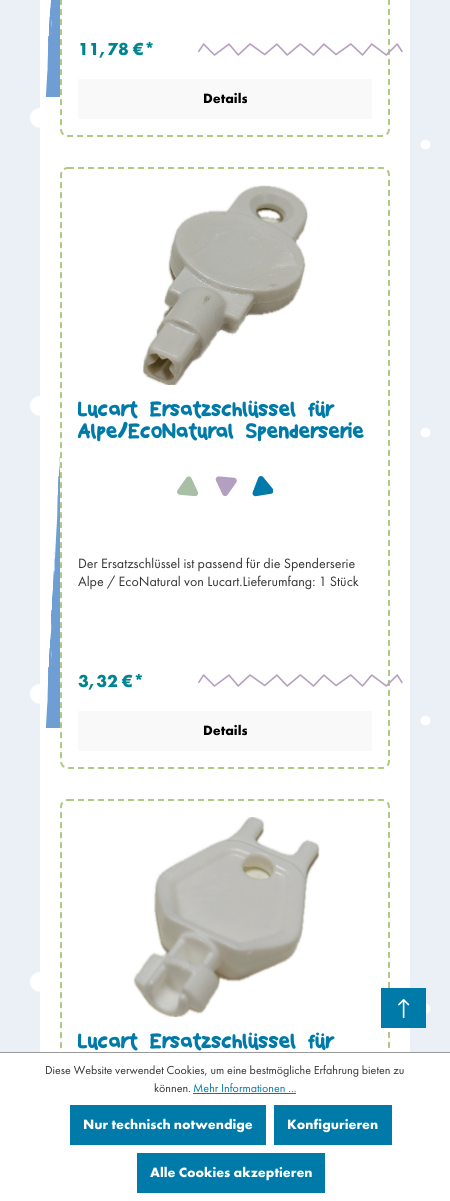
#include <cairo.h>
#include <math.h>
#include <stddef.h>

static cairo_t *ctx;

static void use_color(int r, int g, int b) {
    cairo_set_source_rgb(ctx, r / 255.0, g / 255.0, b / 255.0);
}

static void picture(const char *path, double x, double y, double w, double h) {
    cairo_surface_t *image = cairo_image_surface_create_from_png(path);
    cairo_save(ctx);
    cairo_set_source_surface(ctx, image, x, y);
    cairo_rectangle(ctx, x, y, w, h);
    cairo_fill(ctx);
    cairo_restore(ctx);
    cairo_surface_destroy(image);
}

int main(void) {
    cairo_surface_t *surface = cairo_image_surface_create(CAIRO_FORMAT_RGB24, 450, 1201);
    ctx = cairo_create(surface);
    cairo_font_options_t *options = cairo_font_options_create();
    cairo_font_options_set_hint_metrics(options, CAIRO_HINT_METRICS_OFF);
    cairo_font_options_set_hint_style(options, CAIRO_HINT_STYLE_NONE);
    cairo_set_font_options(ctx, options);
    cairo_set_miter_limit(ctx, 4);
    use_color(255, 255, 255);
    cairo_paint(ctx);
    picture("img1.png", 0, 0, 450, 1052);
    use_color(255, 255, 255);
    cairo_rectangle(ctx, 40, 0, 370, 1052);
    cairo_fill(ctx);
    picture("img2.png", 45, 0, 15, 97);
    cairo_new_path(ctx);
    cairo_move_to(ctx, 68, -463);
    cairo_line_to(ctx, 382, -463);
    cairo_curve_to(ctx, 386, -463, 389, -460, 389, -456);
    cairo_line_to(ctx, 389, 129);
    cairo_curve_to(ctx, 389, 133, 386, 136, 382, 136);
    cairo_line_to(ctx, 68, 136);
    cairo_curve_to(ctx, 64, 136, 61, 133, 61, 129);
    cairo_line_to(ctx, 61, -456);
    cairo_curve_to(ctx, 61, -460, 64, -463, 68, -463);
    cairo_close_path(ctx);
    use_color(175, 201, 133);
    cairo_set_dash(ctx, (double[]){6, 4}, 2, 0);
    cairo_stroke(ctx);
    cairo_select_font_face(ctx, "Futura PT", CAIRO_FONT_SLANT_NORMAL, CAIRO_FONT_WEIGHT_BOLD);
    cairo_set_font_size(ctx, 18);
    use_color(0, 132, 144);
    cairo_move_to(ctx, 78, 55);
    cairo_show_text(ctx, "11,78 €*");
    picture("img3.png", 198, 43, 205, 13);
    use_color(249, 249, 249);
    cairo_rectangle(ctx, 78, 79, 294, 40);
    cairo_fill(ctx);
    cairo_set_font_size(ctx, 14);
    use_color(0, 0, 0);
    cairo_move_to(ctx, 203, 103);
    cairo_show_text(ctx, "Details");
    picture("img4.png", 45, 457, 15, 271);
    cairo_new_path(ctx);
    cairo_move_to(ctx, 68, 168);
    cairo_line_to(ctx, 382, 168);
    cairo_curve_to(ctx, 386, 168, 389, 171, 389, 175);
    cairo_line_to(ctx, 389, 761);
    cairo_curve_to(ctx, 389, 765, 386, 768, 382, 768);
    cairo_line_to(ctx, 68, 768);
    cairo_curve_to(ctx, 64, 768, 61, 765, 61, 761);
    cairo_line_to(ctx, 61, 175);
    cairo_curve_to(ctx, 61, 171, 64, 168, 68, 168);
    cairo_close_path(ctx);
    use_color(175, 201, 133);
    cairo_stroke(ctx);
    picture("img5.png", 142, 185, 166, 200);
    cairo_select_font_face(ctx, "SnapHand", CAIRO_FONT_SLANT_NORMAL, CAIRO_FONT_WEIGHT_NORMAL);
    cairo_set_font_size(ctx, 24);
    use_color(0, 122, 168);
    cairo_move_to(ctx, 78, 416);
    cairo_show_text(ctx, "Lucart Ersatzschlüssel für");
    cairo_move_to(ctx, 78, 438);
    cairo_show_text(ctx, "Alpe/EcoNatural Spenderserie");
    picture("img6.png", 177, 476, 96, 21);
    cairo_select_font_face(ctx, "Futura PT", CAIRO_FONT_SLANT_NORMAL, CAIRO_FONT_WEIGHT_NORMAL);
    cairo_set_font_size(ctx, 14);
    use_color(51, 51, 51);
    cairo_move_to(ctx, 78, 568);
    cairo_show_text(ctx, "Der Ersatzschlüssel ist passend für die Spenderserie");
    cairo_move_to(ctx, 78, 586);
    cairo_show_text(ctx, "Alpe / EcoNatural von Lucart.Lieferumfang: 1 Stück");
    cairo_select_font_face(ctx, "Futura PT", CAIRO_FONT_SLANT_NORMAL, CAIRO_FONT_WEIGHT_BOLD);
    cairo_set_font_size(ctx, 18);
    use_color(0, 132, 144);
    cairo_move_to(ctx, 78, 687);
    cairo_show_text(ctx, "3,32 €*");
    picture("img3.png", 198, 674, 205, 13);
    use_color(249, 249, 249);
    cairo_rectangle(ctx, 78, 711, 294, 40);
    cairo_fill(ctx);
    cairo_set_font_size(ctx, 14);
    use_color(0, 0, 0);
    cairo_move_to(ctx, 203, 735);
    cairo_show_text(ctx, "Details");
    cairo_new_path(ctx);
    cairo_move_to(ctx, 68, 800);
    cairo_line_to(ctx, 382, 800);
    cairo_curve_to(ctx, 386, 800, 389, 803, 389, 807);
    cairo_line_to(ctx, 389, 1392);
    cairo_curve_to(ctx, 389, 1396, 386, 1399, 382, 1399);
    cairo_line_to(ctx, 68, 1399);
    cairo_curve_to(ctx, 64, 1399, 61, 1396, 61, 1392);
    cairo_line_to(ctx, 61, 807);
    cairo_curve_to(ctx, 61, 803, 64, 800, 68, 800);
    cairo_close_path(ctx);
    use_color(175, 201, 133);
    cairo_stroke(ctx);
    picture("img7.png", 133, 817, 187, 200);
    cairo_select_font_face(ctx, "SnapHand", CAIRO_FONT_SLANT_NORMAL, CAIRO_FONT_WEIGHT_NORMAL);
    cairo_set_font_size(ctx, 24);
    use_color(0, 122, 168);
    cairo_move_to(ctx, 78, 1048);
    cairo_show_text(ctx, "Lucart Ersatzschlüssel für");
    cairo_rectangle(ctx, 381, 988, 45, 40);
    cairo_fill(ctx);
    picture("img8.png", 398, 999, 12, 19);
    use_color(255, 255, 255);
    cairo_rectangle(ctx, 60, 1053, 330, 146);
    cairo_fill(ctx);
    use_color(153, 153, 153);
    cairo_rectangle(ctx, 0, 1052, 450, 1);
    cairo_fill(ctx);
    cairo_select_font_face(ctx, "Futura PT", CAIRO_FONT_SLANT_NORMAL, CAIRO_FONT_WEIGHT_NORMAL);
    cairo_set_font_size(ctx, 12);
    use_color(51, 51, 51);
    cairo_move_to(ctx, 45, 1074);
    cairo_show_text(ctx, "Diese Website verwendet Cookies, um eine bestmögliche Erfahrung bieten zu");
    cairo_move_to(ctx, 154, 1092);
    cairo_show_text(ctx, "können.");
    use_color(0, 122, 168);
    cairo_move_to(ctx, 193, 1092);
    cairo_show_text(ctx, "Mehr Informationen ...");
    cairo_rectangle(ctx, 193, 1093, 103, 1);
    cairo_fill(ctx);
    cairo_rectangle(ctx, 70, 1105, 196, 40);
    cairo_fill(ctx);
    cairo_select_font_face(ctx, "Futura PT", CAIRO_FONT_SLANT_NORMAL, CAIRO_FONT_WEIGHT_BOLD);
    cairo_set_font_size(ctx, 14);
    use_color(255, 255, 255);
    cairo_move_to(ctx, 83, 1129);
    cairo_show_text(ctx, "Nur technisch notwendige");
    use_color(0, 122, 168);
    cairo_rectangle(ctx, 274, 1105, 118, 40);
    cairo_fill(ctx);
    use_color(255, 255, 255);
    cairo_move_to(ctx, 287, 1129);
    cairo_show_text(ctx, "Konfigurieren");
    use_color(0, 122, 168);
    cairo_rectangle(ctx, 137, 1153, 188, 40);
    cairo_fill(ctx);
    use_color(255, 255, 255);
    cairo_move_to(ctx, 150, 1177);
    cairo_show_text(ctx, "Alle Cookies akzeptieren");
    cairo_surface_write_to_png(surface, "result.png");
    cairo_font_options_destroy(options);
    cairo_destroy(ctx);
    cairo_surface_destroy(surface);
    return 0;
}
